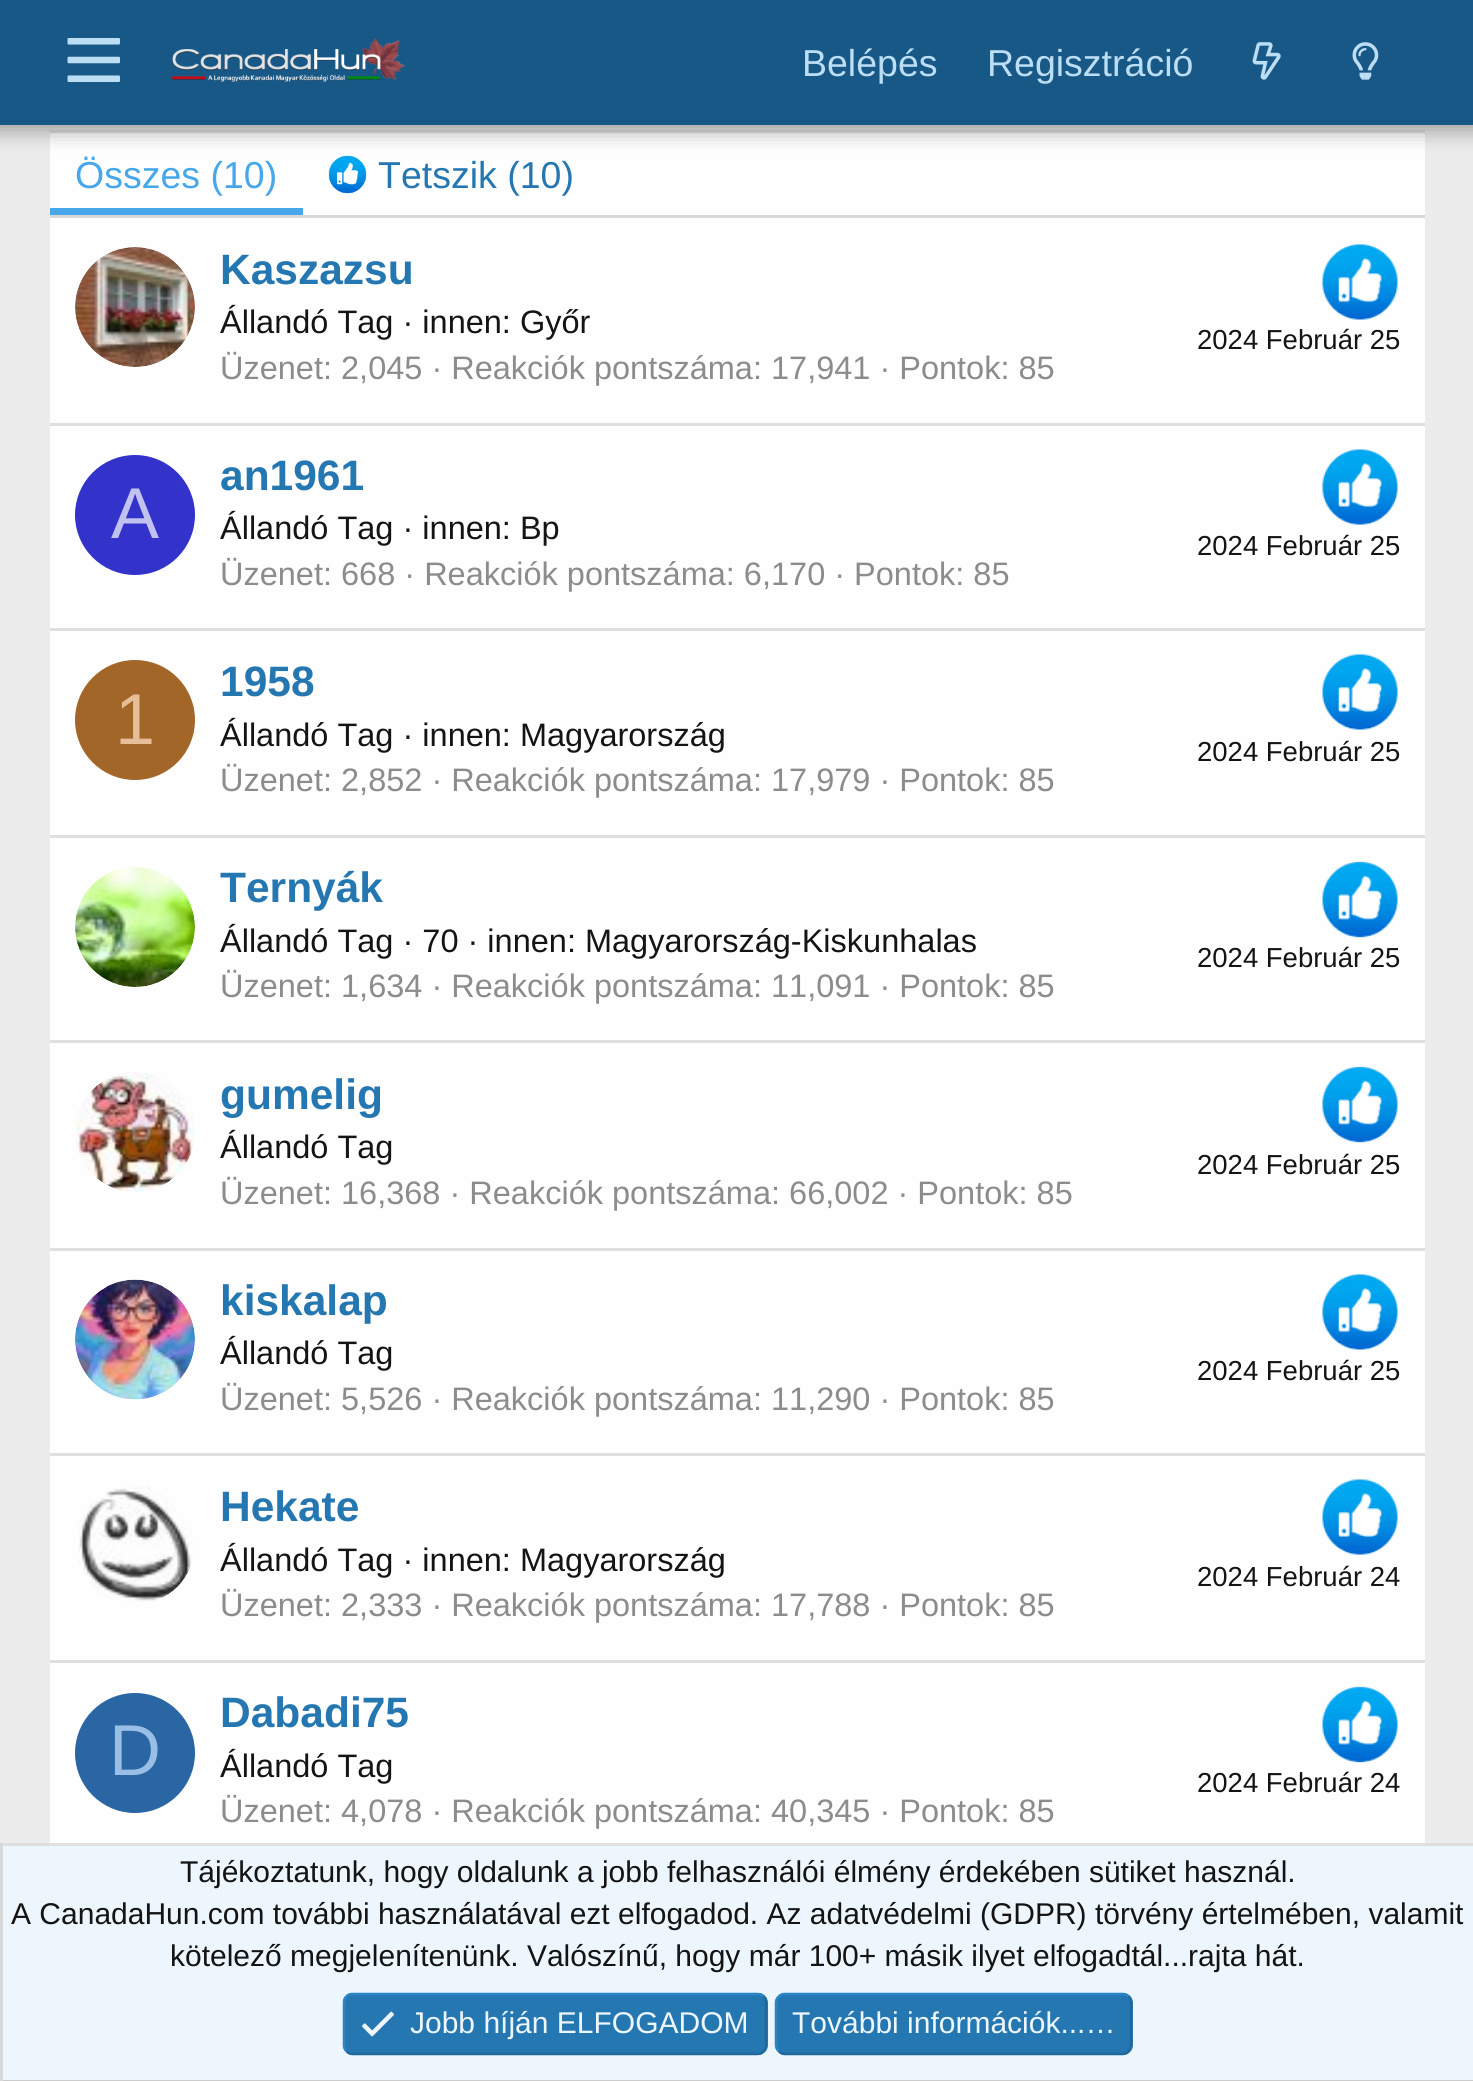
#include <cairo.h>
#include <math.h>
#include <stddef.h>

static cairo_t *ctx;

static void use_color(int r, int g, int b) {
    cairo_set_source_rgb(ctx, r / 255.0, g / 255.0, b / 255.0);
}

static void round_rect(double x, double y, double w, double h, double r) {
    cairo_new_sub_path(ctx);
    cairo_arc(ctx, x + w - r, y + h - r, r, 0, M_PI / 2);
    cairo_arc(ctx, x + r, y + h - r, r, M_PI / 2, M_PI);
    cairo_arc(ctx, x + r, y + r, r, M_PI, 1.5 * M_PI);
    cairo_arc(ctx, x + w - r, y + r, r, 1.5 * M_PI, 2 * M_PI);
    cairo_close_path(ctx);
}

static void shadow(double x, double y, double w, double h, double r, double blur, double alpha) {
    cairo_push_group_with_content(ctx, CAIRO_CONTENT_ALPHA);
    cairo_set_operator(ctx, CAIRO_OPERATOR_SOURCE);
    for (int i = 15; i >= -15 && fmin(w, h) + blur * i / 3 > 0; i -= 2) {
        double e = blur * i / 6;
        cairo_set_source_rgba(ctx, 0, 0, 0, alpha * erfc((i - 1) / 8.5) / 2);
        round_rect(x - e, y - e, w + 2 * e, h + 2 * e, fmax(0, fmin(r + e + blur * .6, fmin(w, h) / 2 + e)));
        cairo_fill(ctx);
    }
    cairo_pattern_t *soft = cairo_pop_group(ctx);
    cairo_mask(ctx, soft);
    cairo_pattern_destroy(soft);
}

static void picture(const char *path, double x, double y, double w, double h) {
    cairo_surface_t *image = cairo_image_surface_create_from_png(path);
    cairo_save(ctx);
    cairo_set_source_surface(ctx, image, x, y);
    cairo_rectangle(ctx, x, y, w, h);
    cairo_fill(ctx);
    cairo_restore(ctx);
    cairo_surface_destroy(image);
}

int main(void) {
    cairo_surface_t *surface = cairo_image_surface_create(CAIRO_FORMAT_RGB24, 1473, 2081);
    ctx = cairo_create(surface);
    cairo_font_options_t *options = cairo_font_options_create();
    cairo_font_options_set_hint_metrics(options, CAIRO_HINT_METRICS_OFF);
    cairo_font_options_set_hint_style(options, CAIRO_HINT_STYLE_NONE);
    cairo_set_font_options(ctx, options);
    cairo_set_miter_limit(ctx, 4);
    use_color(236, 236, 236);
    cairo_paint(ctx);
    use_color(254, 254, 254);
    cairo_rectangle(ctx, 50, 133, 1375, 1710);
    cairo_fill(ctx);
    use_color(223, 223, 223);
    cairo_rectangle(ctx, 50, 130, 1375, 3);
    cairo_fill(ctx);
    picture("img5.png", 328, 155, 39, 39);
    use_color(0, 0, 0);
    shadow(-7, -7, 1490, 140, 0, 10, 0.3);
    use_color(24, 88, 134);
    cairo_rectangle(ctx, 0, 0, 1473, 125);
    cairo_fill(ctx);
    picture("img1.png", 67, 38, 53, 44);
    picture("img2.png", 172, 38, 233, 45);
    cairo_select_font_face(ctx, "Liberation Sans", CAIRO_FONT_SLANT_NORMAL, CAIRO_FONT_WEIGHT_NORMAL);
    cairo_set_font_size(ctx, 37.5);
    use_color(188, 222, 245);
    cairo_move_to(ctx, 802, 76);
    cairo_show_text(ctx, "Belépés");
    cairo_move_to(ctx, 987, 76);
    cairo_show_text(ctx, "Regisztráció");
    picture("img3.png", 1252, 42, 29, 38);
    picture("img4.png", 1352, 42, 27, 38);
    use_color(216, 216, 216);
    cairo_rectangle(ctx, 50, 215, 1375, 3);
    cairo_fill(ctx);
    use_color(71, 167, 235);
    cairo_rectangle(ctx, 50, 208, 253, 7);
    cairo_fill(ctx);
    cairo_move_to(ctx, 75, 188);
    cairo_show_text(ctx, "Összes (10)");
    use_color(37, 119, 177);
    cairo_move_to(ctx, 378, 188);
    cairo_show_text(ctx, "Tetszik (10)");
    picture("img6.png", 75, 247, 120, 120);
    cairo_select_font_face(ctx, "Liberation Sans", CAIRO_FONT_SLANT_NORMAL, CAIRO_FONT_WEIGHT_BOLD);
    cairo_set_font_size(ctx, 42.5);
    cairo_move_to(ctx, 220, 284);
    cairo_show_text(ctx, "Kaszazsu");
    cairo_select_font_face(ctx, "Liberation Sans", CAIRO_FONT_SLANT_NORMAL, CAIRO_FONT_WEIGHT_NORMAL);
    cairo_set_font_size(ctx, 32.5);
    use_color(20, 20, 20);
    cairo_move_to(ctx, 220, 333);
    cairo_show_text(ctx, "Állandó Tag · innen: Győr");
    picture("img7.png", 1322, 244, 76, 76);
    cairo_set_font_size(ctx, 27.5);
    cairo_move_to(ctx, 1197, 349);
    cairo_show_text(ctx, "2024 Február 25");
    cairo_set_font_size(ctx, 32.5);
    use_color(140, 140, 140);
    cairo_move_to(ctx, 220, 379);
    cairo_show_text(ctx, "Üzenet: 2,045 · Reakciók pontszáma: 17,941 · Pontok: 85");
    use_color(223, 223, 223);
    cairo_rectangle(ctx, 50, 423, 1375, 3);
    cairo_fill(ctx);
    use_color(51, 51, 204);
    cairo_arc(ctx, 135, 515, 60, 0, 2 * M_PI);
    cairo_fill(ctx);
    cairo_set_font_size(ctx, 72);
    use_color(194, 194, 240);
    cairo_move_to(ctx, 111, 538);
    cairo_show_text(ctx, "A");
    cairo_select_font_face(ctx, "Liberation Sans", CAIRO_FONT_SLANT_NORMAL, CAIRO_FONT_WEIGHT_BOLD);
    cairo_set_font_size(ctx, 42.5);
    use_color(37, 119, 177);
    cairo_move_to(ctx, 220, 490);
    cairo_show_text(ctx, "an1961");
    cairo_select_font_face(ctx, "Liberation Sans", CAIRO_FONT_SLANT_NORMAL, CAIRO_FONT_WEIGHT_NORMAL);
    cairo_set_font_size(ctx, 32.5);
    use_color(20, 20, 20);
    cairo_move_to(ctx, 220, 539);
    cairo_show_text(ctx, "Állandó Tag · innen: Bp");
    picture("img7.png", 1322, 449, 76, 76);
    cairo_set_font_size(ctx, 27.5);
    cairo_move_to(ctx, 1197, 555);
    cairo_show_text(ctx, "2024 Február 25");
    cairo_set_font_size(ctx, 32.5);
    use_color(140, 140, 140);
    cairo_move_to(ctx, 220, 585);
    cairo_show_text(ctx, "Üzenet: 668 · Reakciók pontszáma: 6,170 · Pontok: 85");
    use_color(223, 223, 223);
    cairo_rectangle(ctx, 50, 628, 1375, 3);
    cairo_fill(ctx);
    use_color(163, 102, 41);
    cairo_arc(ctx, 135, 720, 60, 0, 2 * M_PI);
    cairo_fill(ctx);
    cairo_set_font_size(ctx, 72);
    use_color(230, 191, 153);
    cairo_move_to(ctx, 115, 744);
    cairo_show_text(ctx, "1");
    cairo_select_font_face(ctx, "Liberation Sans", CAIRO_FONT_SLANT_NORMAL, CAIRO_FONT_WEIGHT_BOLD);
    cairo_set_font_size(ctx, 42.5);
    use_color(37, 119, 177);
    cairo_move_to(ctx, 220, 696);
    cairo_show_text(ctx, "1958");
    cairo_select_font_face(ctx, "Liberation Sans", CAIRO_FONT_SLANT_NORMAL, CAIRO_FONT_WEIGHT_NORMAL);
    cairo_set_font_size(ctx, 32.5);
    use_color(20, 20, 20);
    cairo_move_to(ctx, 220, 746);
    cairo_show_text(ctx, "Állandó Tag · innen: Magyarország");
    picture("img7.png", 1322, 654, 76, 76);
    cairo_set_font_size(ctx, 27.5);
    cairo_move_to(ctx, 1197, 761);
    cairo_show_text(ctx, "2024 Február 25");
    cairo_set_font_size(ctx, 32.5);
    use_color(140, 140, 140);
    cairo_move_to(ctx, 220, 791);
    cairo_show_text(ctx, "Üzenet: 2,852 · Reakciók pontszáma: 17,979 · Pontok: 85");
    use_color(223, 223, 223);
    cairo_rectangle(ctx, 50, 835, 1375, 3);
    cairo_fill(ctx);
    picture("img8.png", 75, 867, 120, 120);
    cairo_select_font_face(ctx, "Liberation Sans", CAIRO_FONT_SLANT_NORMAL, CAIRO_FONT_WEIGHT_BOLD);
    cairo_set_font_size(ctx, 42.5);
    use_color(37, 119, 177);
    cairo_move_to(ctx, 220, 902);
    cairo_show_text(ctx, "Ternyák");
    cairo_select_font_face(ctx, "Liberation Sans", CAIRO_FONT_SLANT_NORMAL, CAIRO_FONT_WEIGHT_NORMAL);
    cairo_set_font_size(ctx, 32.5);
    use_color(20, 20, 20);
    cairo_move_to(ctx, 220, 952);
    cairo_show_text(ctx, "Állandó Tag · 70 · innen: Magyarország-Kiskunhalas");
    picture("img9.png", 1322, 861, 76, 77);
    cairo_set_font_size(ctx, 27.5);
    cairo_move_to(ctx, 1197, 967);
    cairo_show_text(ctx, "2024 Február 25");
    cairo_set_font_size(ctx, 32.5);
    use_color(140, 140, 140);
    cairo_move_to(ctx, 220, 997);
    cairo_show_text(ctx, "Üzenet: 1,634 · Reakciók pontszáma: 11,091 · Pontok: 85");
    use_color(223, 223, 223);
    cairo_rectangle(ctx, 50, 1040, 1375, 3);
    cairo_fill(ctx);
    picture("img10.png", 75, 1072, 120, 120);
    cairo_select_font_face(ctx, "Liberation Sans", CAIRO_FONT_SLANT_NORMAL, CAIRO_FONT_WEIGHT_BOLD);
    cairo_set_font_size(ctx, 42.5);
    use_color(37, 119, 177);
    cairo_move_to(ctx, 220, 1109);
    cairo_show_text(ctx, "gumelig");
    cairo_select_font_face(ctx, "Liberation Sans", CAIRO_FONT_SLANT_NORMAL, CAIRO_FONT_WEIGHT_NORMAL);
    cairo_set_font_size(ctx, 32.5);
    use_color(20, 20, 20);
    cairo_move_to(ctx, 220, 1158);
    cairo_show_text(ctx, "Állandó Tag");
    picture("img9.png", 1322, 1066, 76, 77);
    cairo_set_font_size(ctx, 27.5);
    cairo_move_to(ctx, 1197, 1174);
    cairo_show_text(ctx, "2024 Február 25");
    cairo_set_font_size(ctx, 32.5);
    use_color(140, 140, 140);
    cairo_move_to(ctx, 220, 1204);
    cairo_show_text(ctx, "Üzenet: 16,368 · Reakciók pontszáma: 66,002 · Pontok: 85");
    use_color(223, 223, 223);
    cairo_rectangle(ctx, 50, 1248, 1375, 3);
    cairo_fill(ctx);
    picture("img11.png", 75, 1279, 120, 121);
    cairo_select_font_face(ctx, "Liberation Sans", CAIRO_FONT_SLANT_NORMAL, CAIRO_FONT_WEIGHT_BOLD);
    cairo_set_font_size(ctx, 42.5);
    use_color(37, 119, 177);
    cairo_move_to(ctx, 220, 1315);
    cairo_show_text(ctx, "kiskalap");
    cairo_select_font_face(ctx, "Liberation Sans", CAIRO_FONT_SLANT_NORMAL, CAIRO_FONT_WEIGHT_NORMAL);
    cairo_set_font_size(ctx, 32.5);
    use_color(20, 20, 20);
    cairo_move_to(ctx, 220, 1364);
    cairo_show_text(ctx, "Állandó Tag");
    picture("img7.png", 1322, 1274, 76, 76);
    cairo_set_font_size(ctx, 27.5);
    cairo_move_to(ctx, 1197, 1380);
    cairo_show_text(ctx, "2024 Február 25");
    cairo_set_font_size(ctx, 32.5);
    use_color(140, 140, 140);
    cairo_move_to(ctx, 220, 1410);
    cairo_show_text(ctx, "Üzenet: 5,526 · Reakciók pontszáma: 11,290 · Pontok: 85");
    use_color(223, 223, 223);
    cairo_rectangle(ctx, 50, 1453, 1375, 3);
    cairo_fill(ctx);
    picture("img12.png", 78, 1487, 116, 116);
    cairo_select_font_face(ctx, "Liberation Sans", CAIRO_FONT_SLANT_NORMAL, CAIRO_FONT_WEIGHT_BOLD);
    cairo_set_font_size(ctx, 42.5);
    use_color(37, 119, 177);
    cairo_move_to(ctx, 220, 1521);
    cairo_show_text(ctx, "Hekate");
    cairo_select_font_face(ctx, "Liberation Sans", CAIRO_FONT_SLANT_NORMAL, CAIRO_FONT_WEIGHT_NORMAL);
    cairo_set_font_size(ctx, 32.5);
    use_color(20, 20, 20);
    cairo_move_to(ctx, 220, 1571);
    cairo_show_text(ctx, "Állandó Tag · innen: Magyarország");
    picture("img7.png", 1322, 1479, 76, 76);
    cairo_set_font_size(ctx, 27.5);
    cairo_move_to(ctx, 1197, 1586);
    cairo_show_text(ctx, "2024 Február 24");
    cairo_set_font_size(ctx, 32.5);
    use_color(140, 140, 140);
    cairo_move_to(ctx, 220, 1616);
    cairo_show_text(ctx, "Üzenet: 2,333 · Reakciók pontszáma: 17,788 · Pontok: 85");
    use_color(223, 223, 223);
    cairo_rectangle(ctx, 50, 1660, 1375, 3);
    cairo_fill(ctx);
    use_color(41, 102, 163);
    cairo_arc(ctx, 135, 1753, 60, 0, 2 * M_PI);
    cairo_fill(ctx);
    cairo_set_font_size(ctx, 72);
    use_color(153, 191, 230);
    cairo_move_to(ctx, 109, 1775);
    cairo_show_text(ctx, "D");
    cairo_select_font_face(ctx, "Liberation Sans", CAIRO_FONT_SLANT_NORMAL, CAIRO_FONT_WEIGHT_BOLD);
    cairo_set_font_size(ctx, 42.5);
    use_color(37, 119, 177);
    cairo_move_to(ctx, 220, 1727);
    cairo_show_text(ctx, "Dabadi75");
    cairo_select_font_face(ctx, "Liberation Sans", CAIRO_FONT_SLANT_NORMAL, CAIRO_FONT_WEIGHT_NORMAL);
    cairo_set_font_size(ctx, 32.5);
    use_color(20, 20, 20);
    cairo_move_to(ctx, 220, 1777);
    cairo_show_text(ctx, "Állandó Tag");
    picture("img9.png", 1322, 1686, 76, 77);
    cairo_set_font_size(ctx, 27.5);
    cairo_move_to(ctx, 1197, 1792);
    cairo_show_text(ctx, "2024 Február 24");
    cairo_set_font_size(ctx, 32.5);
    use_color(140, 140, 140);
    cairo_move_to(ctx, 220, 1822);
    cairo_show_text(ctx, "Üzenet: 4,078 · Reakciók pontszáma: 40,345 · Pontok: 85");
    use_color(237, 246, 253);
    cairo_rectangle(ctx, 3, 1846, 1470, 234);
    cairo_fill(ctx);
    use_color(223, 223, 223);
    cairo_rectangle(ctx, 0, 1843, 1473, 3);
    cairo_fill(ctx);
    use_color(203, 203, 203);
    cairo_rectangle(ctx, 0, 2080, 1473, 1);
    cairo_fill(ctx);
    use_color(216, 216, 216);
    cairo_rectangle(ctx, 0, 1843, 3, 238);
    cairo_fill(ctx);
    cairo_set_font_size(ctx, 30);
    use_color(20, 20, 20);
    cairo_move_to(ctx, 180, 1882);
    cairo_show_text(ctx, "Tájékoztatunk, hogy oldalunk a jobb felhasználói élmény érdekében sütiket használ.");
    cairo_move_to(ctx, 11, 1924);
    cairo_show_text(ctx, "A CanadaHun.com további használatával ezt elfogadod. Az adatvédelmi (GDPR) törvény értelmében, valamit");
    cairo_move_to(ctx, 170, 1966);
    cairo_show_text(ctx, "kötelező megjelenítenünk. Valószínű, hogy már 100+ másik ilyet elfogadtál...rajta hát.");
    use_color(37, 119, 177);
    round_rect(343, 1993, 425, 62, 10);
    cairo_fill(ctx);
    cairo_new_path(ctx);
    cairo_move_to(ctx, 763.5, 1996.5);
    cairo_curve_to(ctx, 765.5, 1998, 766, 2000, 766, 2002.5);
    cairo_line_to(ctx, 766, 2045);
    cairo_curve_to(ctx, 766, 2047.5, 765.5, 2049.5, 763.5, 2051);
    cairo_curve_to(ctx, 762, 2053, 760, 2054, 757.5, 2054);
    cairo_line_to(ctx, 352.5, 2054);
    cairo_curve_to(ctx, 350, 2054, 348, 2053, 346.5, 2051);
    use_color(33, 105, 156);
    cairo_set_line_width(ctx, 2.5);
    cairo_stroke(ctx);
    cairo_new_path(ctx);
    cairo_move_to(ctx, 346.5, 2051);
    cairo_curve_to(ctx, 344.5, 2049.5, 344, 2047.5, 344, 2045);
    cairo_line_to(ctx, 344, 2002.5);
    cairo_curve_to(ctx, 344, 2000, 344.5, 1998, 346.5, 1996.5);
    cairo_curve_to(ctx, 348, 1994.5, 350, 1994, 352.5, 1994);
    cairo_line_to(ctx, 757.5, 1994);
    cairo_curve_to(ctx, 760, 1994, 762, 1994.5, 763.5, 1996.5);
    use_color(41, 133, 198);
    cairo_stroke(ctx);
    picture("img13.png", 361, 2011, 34, 26);
    use_color(237, 246, 253);
    cairo_move_to(ctx, 410, 2033);
    cairo_show_text(ctx, "Jobb híján ELFOGADOM");
    use_color(37, 119, 177);
    round_rect(775, 1993, 358, 62, 10);
    cairo_fill(ctx);
    cairo_new_path(ctx);
    cairo_move_to(ctx, 1128.5, 1996.5);
    cairo_curve_to(ctx, 1130.5, 1998, 1131, 2000, 1131, 2002.5);
    cairo_line_to(ctx, 1131, 2045);
    cairo_curve_to(ctx, 1131, 2047.5, 1130.5, 2049.5, 1128.5, 2051);
    cairo_curve_to(ctx, 1127, 2053, 1125, 2054, 1122.5, 2054);
    cairo_line_to(ctx, 785, 2054);
    cairo_curve_to(ctx, 782.5, 2054, 780.5, 2053, 779, 2051);
    use_color(33, 105, 156);
    cairo_stroke(ctx);
    cairo_new_path(ctx);
    cairo_move_to(ctx, 779, 2051);
    cairo_curve_to(ctx, 777, 2049.5, 776, 2047.5, 776, 2045);
    cairo_line_to(ctx, 776, 2002.5);
    cairo_curve_to(ctx, 776, 2000, 777, 1998, 779, 1996.5);
    cairo_curve_to(ctx, 780.5, 1994.5, 782.5, 1994, 785, 1994);
    cairo_line_to(ctx, 1122.5, 1994);
    cairo_curve_to(ctx, 1125, 1994, 1127, 1994.5, 1128.5, 1996.5);
    use_color(41, 133, 198);
    cairo_stroke(ctx);
    use_color(237, 246, 253);
    cairo_move_to(ctx, 792, 2033);
    cairo_show_text(ctx, "További információk...…");
    cairo_surface_write_to_png(surface, "result.png");
    cairo_font_options_destroy(options);
    cairo_destroy(ctx);
    cairo_surface_destroy(surface);
    return 0;
}
